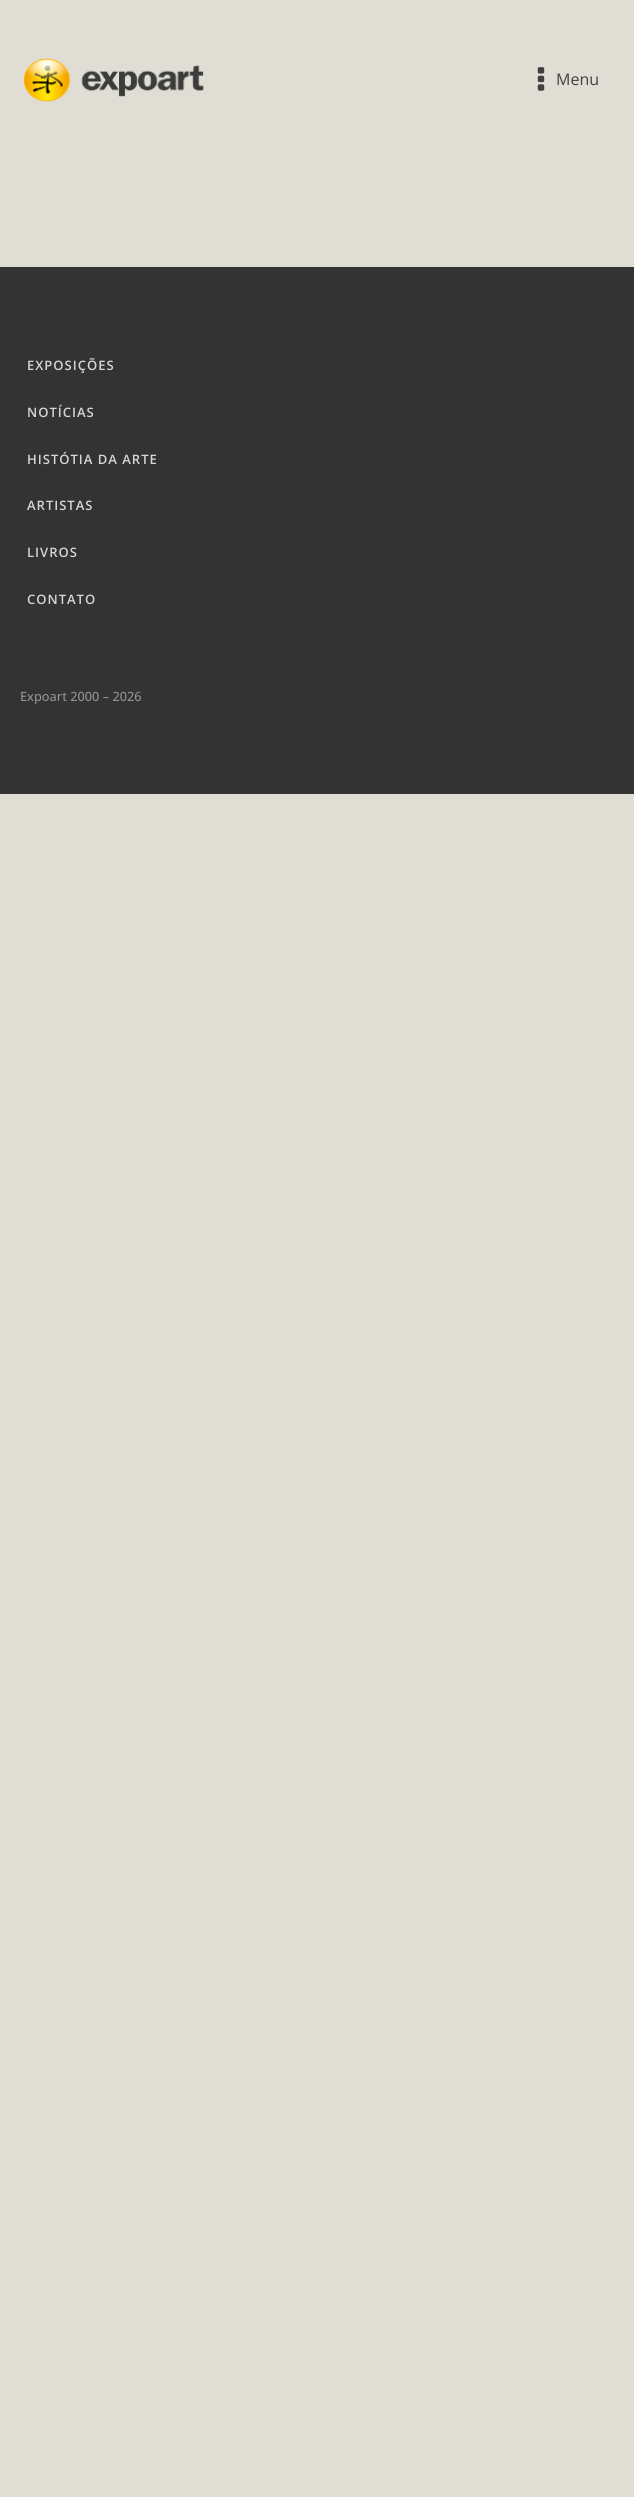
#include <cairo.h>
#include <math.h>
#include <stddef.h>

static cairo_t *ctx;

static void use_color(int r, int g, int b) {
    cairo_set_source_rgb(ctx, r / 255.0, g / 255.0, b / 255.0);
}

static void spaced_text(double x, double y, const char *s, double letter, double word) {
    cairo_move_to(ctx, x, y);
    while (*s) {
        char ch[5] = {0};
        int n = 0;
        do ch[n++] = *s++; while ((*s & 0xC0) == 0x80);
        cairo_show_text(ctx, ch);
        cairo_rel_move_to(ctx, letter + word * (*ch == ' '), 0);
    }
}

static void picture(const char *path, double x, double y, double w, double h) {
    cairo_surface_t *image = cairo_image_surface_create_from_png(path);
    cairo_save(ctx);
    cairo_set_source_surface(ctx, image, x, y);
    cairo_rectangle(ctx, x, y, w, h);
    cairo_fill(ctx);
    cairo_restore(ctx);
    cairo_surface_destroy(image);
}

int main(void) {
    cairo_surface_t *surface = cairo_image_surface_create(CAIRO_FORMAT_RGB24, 634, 2497);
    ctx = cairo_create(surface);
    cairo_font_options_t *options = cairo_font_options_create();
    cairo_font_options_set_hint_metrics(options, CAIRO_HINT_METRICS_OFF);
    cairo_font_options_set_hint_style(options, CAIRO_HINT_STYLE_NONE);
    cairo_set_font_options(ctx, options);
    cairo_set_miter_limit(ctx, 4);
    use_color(224, 222, 212);
    cairo_paint(ctx);
    picture("img1.png", 23, 58, 181, 44);
    picture("img2.png", 537, 67, 8, 24);
    cairo_select_font_face(ctx, "Open Sans", CAIRO_FONT_SLANT_NORMAL, CAIRO_FONT_WEIGHT_NORMAL);
    cairo_set_font_size(ctx, 16);
    use_color(64, 64, 64);
    cairo_move_to(ctx, 556, 85);
    cairo_show_text(ctx, "Menu");
    use_color(51, 51, 51);
    cairo_rectangle(ctx, 0, 267, 634, 527);
    cairo_fill(ctx);
    cairo_select_font_face(ctx, "Open Sans SemiBold", CAIRO_FONT_SLANT_NORMAL, CAIRO_FONT_WEIGHT_NORMAL);
    cairo_set_font_size(ctx, 13);
    use_color(214, 214, 214);
    spaced_text(27, 370, "EXPOSIÇÕES", 1, 0);
    spaced_text(27, 417, "NOTÍCIAS", 1, 0);
    spaced_text(27, 464, "HISTÓTIA DA ARTE", 1, 0);
    spaced_text(27, 510, "ARTISTAS", 1, 0);
    spaced_text(27, 557, "LIVROS", 1, 0);
    spaced_text(27, 604, "CONTATO", 1, 0);
    cairo_select_font_face(ctx, "Open Sans Medium", CAIRO_FONT_SLANT_NORMAL, CAIRO_FONT_WEIGHT_NORMAL);
    cairo_set_font_size(ctx, 12.75);
    use_color(146, 146, 146);
    cairo_move_to(ctx, 20, 701);
    cairo_show_text(ctx, "Expoart 2000 – 2026");
    cairo_surface_write_to_png(surface, "result.png");
    cairo_font_options_destroy(options);
    cairo_destroy(ctx);
    cairo_surface_destroy(surface);
    return 0;
}
